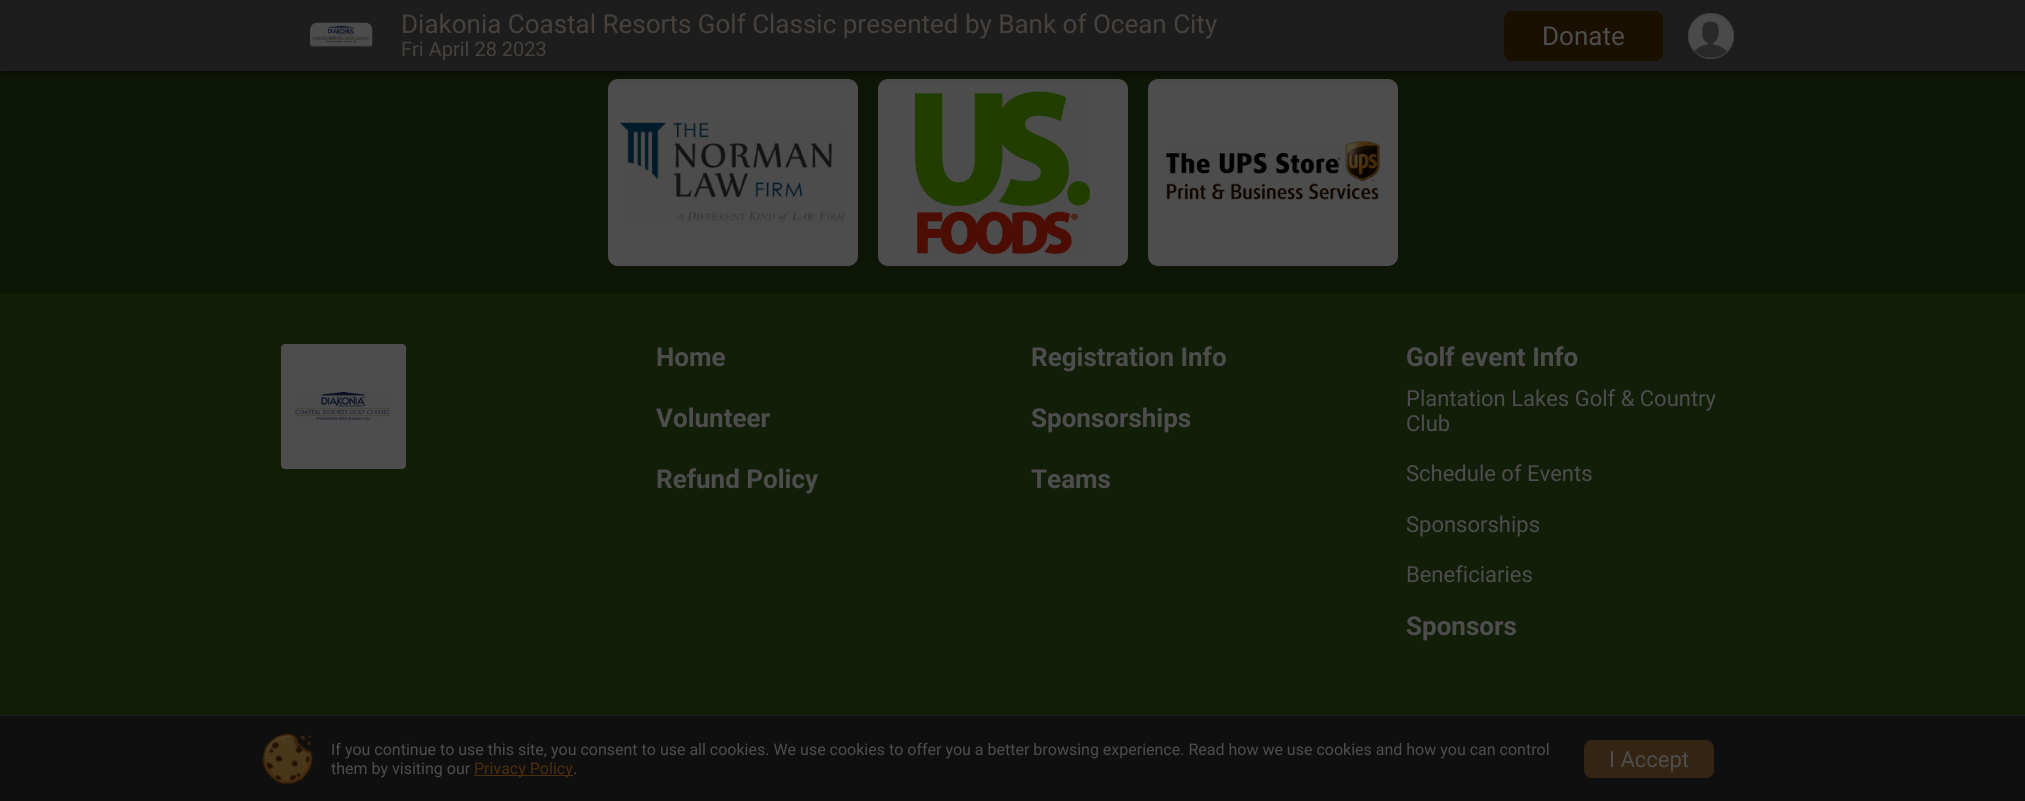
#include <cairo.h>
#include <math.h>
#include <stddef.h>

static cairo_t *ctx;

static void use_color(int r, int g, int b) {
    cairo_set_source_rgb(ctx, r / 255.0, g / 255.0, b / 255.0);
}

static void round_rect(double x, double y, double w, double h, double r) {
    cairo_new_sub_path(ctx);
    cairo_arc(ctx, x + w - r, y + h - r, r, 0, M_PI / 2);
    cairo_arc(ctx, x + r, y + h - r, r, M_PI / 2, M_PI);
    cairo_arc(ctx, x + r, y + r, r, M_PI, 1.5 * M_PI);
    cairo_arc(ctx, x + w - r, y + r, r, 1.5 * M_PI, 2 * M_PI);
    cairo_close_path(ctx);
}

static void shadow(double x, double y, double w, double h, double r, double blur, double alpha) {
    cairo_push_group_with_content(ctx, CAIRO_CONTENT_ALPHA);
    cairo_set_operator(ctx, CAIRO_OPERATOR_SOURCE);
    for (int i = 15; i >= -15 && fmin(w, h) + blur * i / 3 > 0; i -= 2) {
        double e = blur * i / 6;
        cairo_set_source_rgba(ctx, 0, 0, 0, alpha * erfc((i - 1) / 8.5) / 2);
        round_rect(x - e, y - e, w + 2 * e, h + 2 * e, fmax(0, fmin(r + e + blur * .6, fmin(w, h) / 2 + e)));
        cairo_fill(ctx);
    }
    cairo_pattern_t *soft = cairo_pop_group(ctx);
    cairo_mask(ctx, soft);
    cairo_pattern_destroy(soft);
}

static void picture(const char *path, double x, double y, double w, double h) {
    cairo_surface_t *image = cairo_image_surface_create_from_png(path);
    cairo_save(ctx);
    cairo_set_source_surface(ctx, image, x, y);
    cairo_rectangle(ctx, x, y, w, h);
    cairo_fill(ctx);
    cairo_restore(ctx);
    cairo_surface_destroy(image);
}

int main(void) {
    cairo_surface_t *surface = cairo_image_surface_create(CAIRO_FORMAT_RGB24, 2025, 801);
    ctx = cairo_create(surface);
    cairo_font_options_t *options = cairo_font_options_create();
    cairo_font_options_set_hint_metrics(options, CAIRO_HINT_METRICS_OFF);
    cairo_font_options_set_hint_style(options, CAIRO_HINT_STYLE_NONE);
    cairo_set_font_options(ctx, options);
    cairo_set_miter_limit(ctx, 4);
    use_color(14, 23, 7);
    cairo_paint(ctx);
    use_color(77, 77, 77);
    round_rect(608, 79, 250, 187, 10);
    cairo_fill(ctx);
    round_rect(878, 79, 250, 187, 10);
    cairo_fill(ctx);
    round_rect(1148, 79, 250, 187, 10);
    cairo_fill(ctx);
    use_color(0, 0, 0);
    shadow(-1, -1, 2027, 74, 0, 5, 0.6);
    use_color(29, 29, 29);
    cairo_rectangle(ctx, 0, 0, 2025, 71);
    cairo_fill(ctx);
    picture("img1.png", 310, 22, 63, 25);
    cairo_select_font_face(ctx, "Roboto", CAIRO_FONT_SLANT_NORMAL, CAIRO_FONT_WEIGHT_NORMAL);
    cairo_set_font_size(ctx, 26);
    use_color(70, 65, 60);
    cairo_move_to(ctx, 401, 33);
    cairo_show_text(ctx, "Diakonia Coastal Resorts Golf Classic presented by Bank of Ocean City");
    cairo_set_font_size(ctx, 20);
    cairo_move_to(ctx, 401, 56);
    cairo_show_text(ctx, "Fri April 28 2023");
    use_color(26, 16, 0);
    round_rect(1504, 11, 159, 50, 8);
    cairo_fill(ctx);
    cairo_set_font_size(ctx, 26);
    use_color(77, 77, 77);
    cairo_move_to(ctx, 1542, 45);
    cairo_show_text(ctx, "Donate");
    cairo_new_path(ctx);
    cairo_arc(ctx, 1711, 36, 23, 0, 2 * M_PI);
    cairo_fill(ctx);
    picture("img2.png", 1689, 14, 43, 44);
    cairo_arc(ctx, 1711, 36, 22.5, 0, 2 * M_PI);
    use_color(61, 61, 61);
    cairo_set_line_width(ctx, 1);
    cairo_stroke(ctx);
    picture("img3.png", 620, 122, 225, 101);
    picture("img4.png", 915, 91, 175, 163);
    picture("img5.png", 1166, 141, 214, 59);
    use_color(19, 30, 9);
    cairo_rectangle(ctx, 0, 294, 2025, 421);
    cairo_fill(ctx);
    use_color(77, 77, 77);
    round_rect(281, 344, 125, 125, 4);
    cairo_fill(ctx);
    picture("img6.png", 295, 391, 95, 30);
    cairo_select_font_face(ctx, "Roboto", CAIRO_FONT_SLANT_NORMAL, CAIRO_FONT_WEIGHT_BOLD);
    cairo_move_to(ctx, 656, 366);
    cairo_show_text(ctx, "Home");
    cairo_move_to(ctx, 656, 427);
    cairo_show_text(ctx, "Volunteer");
    cairo_move_to(ctx, 656, 488);
    cairo_show_text(ctx, "Refund Policy");
    cairo_move_to(ctx, 1031, 366);
    cairo_show_text(ctx, "Registration Info");
    cairo_move_to(ctx, 1031, 427);
    cairo_show_text(ctx, "Sponsorships");
    cairo_move_to(ctx, 1031, 488);
    cairo_show_text(ctx, "Teams");
    cairo_move_to(ctx, 1406, 366);
    cairo_show_text(ctx, "Golf event Info");
    cairo_select_font_face(ctx, "Roboto", CAIRO_FONT_SLANT_NORMAL, CAIRO_FONT_WEIGHT_NORMAL);
    cairo_set_font_size(ctx, 22);
    cairo_move_to(ctx, 1406, 406);
    cairo_show_text(ctx, "Plantation Lakes Golf & Country");
    cairo_move_to(ctx, 1406, 431);
    cairo_show_text(ctx, "Club");
    cairo_move_to(ctx, 1406, 481);
    cairo_show_text(ctx, "Schedule of Events");
    cairo_move_to(ctx, 1406, 532);
    cairo_show_text(ctx, "Sponsorships");
    cairo_move_to(ctx, 1406, 582);
    cairo_show_text(ctx, "Beneficiaries");
    cairo_select_font_face(ctx, "Roboto", CAIRO_FONT_SLANT_NORMAL, CAIRO_FONT_WEIGHT_BOLD);
    cairo_set_font_size(ctx, 26);
    cairo_move_to(ctx, 1406, 635);
    cairo_show_text(ctx, "Sponsors");
    use_color(15, 15, 15);
    cairo_rectangle(ctx, 0, 716, 2025, 85);
    cairo_fill(ctx);
    use_color(31, 31, 31);
    cairo_rectangle(ctx, 0, 715, 2025, 1);
    cairo_fill(ctx);
    picture("img7.png", 262, 733, 51, 51);
    cairo_select_font_face(ctx, "Roboto", CAIRO_FONT_SLANT_NORMAL, CAIRO_FONT_WEIGHT_NORMAL);
    cairo_set_font_size(ctx, 16);
    use_color(77, 77, 77);
    cairo_move_to(ctx, 331, 755);
    cairo_show_text(ctx, "If you continue to use this site, you consent to use all cookies. We use cookies to offer you a better browsing experience. Read how we use cookies and how you can control");
    cairo_move_to(ctx, 331, 774);
    cairo_show_text(ctx, "them by visiting our");
    use_color(76, 46, 11);
    cairo_rectangle(ctx, 474, 775, 99, 1);
    cairo_fill(ctx);
    cairo_move_to(ctx, 474, 774);
    cairo_show_text(ctx, "Privacy Policy");
    use_color(77, 77, 77);
    cairo_move_to(ctx, 573, 774);
    cairo_show_text(ctx, ".");
    use_color(51, 36, 20);
    round_rect(1584, 740, 130, 38, 8);
    cairo_fill(ctx);
    cairo_set_font_size(ctx, 22);
    use_color(77, 77, 77);
    cairo_move_to(ctx, 1609, 767);
    cairo_show_text(ctx, "I Accept");
    cairo_surface_write_to_png(surface, "result.png");
    cairo_font_options_destroy(options);
    cairo_destroy(ctx);
    cairo_surface_destroy(surface);
    return 0;
}
